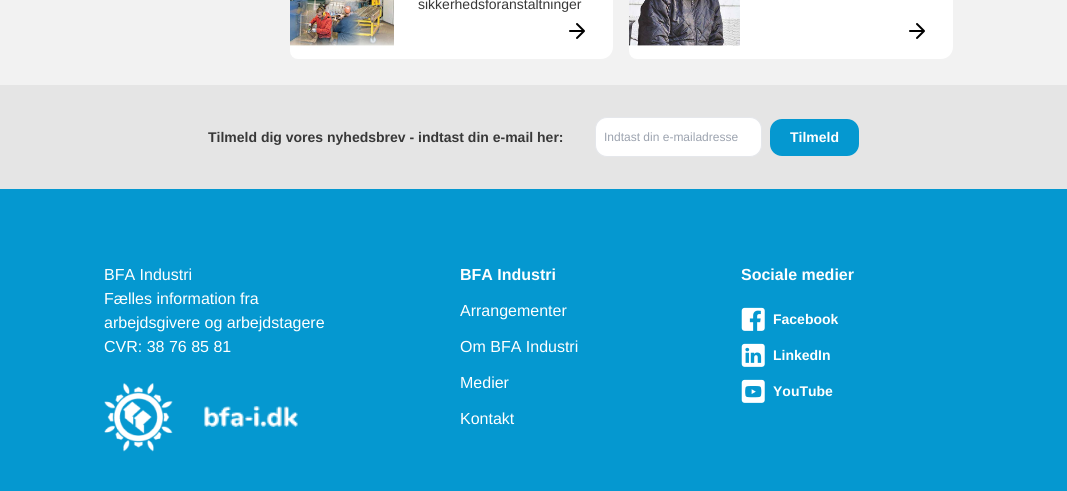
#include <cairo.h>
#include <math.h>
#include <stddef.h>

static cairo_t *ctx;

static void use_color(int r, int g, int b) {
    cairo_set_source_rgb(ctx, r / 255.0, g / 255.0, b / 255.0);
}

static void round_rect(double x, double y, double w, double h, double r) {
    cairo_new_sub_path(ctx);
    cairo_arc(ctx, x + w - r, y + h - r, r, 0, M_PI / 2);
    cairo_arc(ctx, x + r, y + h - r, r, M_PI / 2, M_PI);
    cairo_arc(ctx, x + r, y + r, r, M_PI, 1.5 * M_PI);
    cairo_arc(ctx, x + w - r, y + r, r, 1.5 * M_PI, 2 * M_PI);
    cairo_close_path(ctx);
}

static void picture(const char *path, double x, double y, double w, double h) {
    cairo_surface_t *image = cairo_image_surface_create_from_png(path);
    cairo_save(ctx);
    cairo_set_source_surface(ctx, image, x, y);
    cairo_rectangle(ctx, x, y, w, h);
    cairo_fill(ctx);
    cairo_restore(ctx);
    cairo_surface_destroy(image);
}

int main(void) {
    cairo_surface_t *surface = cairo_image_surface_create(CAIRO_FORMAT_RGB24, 1067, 491);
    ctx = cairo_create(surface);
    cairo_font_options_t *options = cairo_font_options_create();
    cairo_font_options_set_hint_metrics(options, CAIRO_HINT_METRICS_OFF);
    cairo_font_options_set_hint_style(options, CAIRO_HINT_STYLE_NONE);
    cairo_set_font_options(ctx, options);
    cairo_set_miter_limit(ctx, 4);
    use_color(242, 242, 242);
    cairo_paint(ctx);
    use_color(255, 255, 255);
    round_rect(290, -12, 323, 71, 12);
    cairo_fill(ctx);
    picture("img1.png", 290, 0, 104, 59);
    cairo_select_font_face(ctx, "Liberation Sans", CAIRO_FONT_SLANT_NORMAL, CAIRO_FONT_WEIGHT_NORMAL);
    cairo_set_font_size(ctx, 14);
    use_color(56, 56, 56);
    cairo_move_to(ctx, 418, 9);
    cairo_show_text(ctx, "sikkerhedsforanstaltninger");
    cairo_new_path(ctx);
    cairo_move_to(ctx, 570, 31);
    cairo_line_to(ctx, 584, 31);
    cairo_move_to(ctx, 577, 24);
    cairo_line_to(ctx, 584, 31);
    cairo_line_to(ctx, 577, 38);
    use_color(0, 0, 0);
    cairo_set_line_cap(ctx, CAIRO_LINE_CAP_ROUND);
    cairo_set_line_join(ctx, CAIRO_LINE_JOIN_ROUND);
    cairo_stroke(ctx);
    use_color(255, 255, 255);
    round_rect(629, -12, 324, 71, 12);
    cairo_fill(ctx);
    picture("img2.png", 629, 0, 111, 59);
    cairo_new_path(ctx);
    cairo_move_to(ctx, 910, 31);
    cairo_line_to(ctx, 924, 31);
    cairo_move_to(ctx, 917, 24);
    cairo_line_to(ctx, 924, 31);
    cairo_line_to(ctx, 917, 38);
    use_color(0, 0, 0);
    cairo_stroke(ctx);
    use_color(229, 229, 229);
    cairo_rectangle(ctx, 0, 85, 1067, 104);
    cairo_fill(ctx);
    cairo_select_font_face(ctx, "Liberation Sans", CAIRO_FONT_SLANT_NORMAL, CAIRO_FONT_WEIGHT_BOLD);
    use_color(56, 56, 56);
    cairo_move_to(ctx, 208, 142);
    cairo_show_text(ctx, "Tilmeld dig vores nyhedsbrev - indtast din e-mail her:");
    use_color(255, 255, 255);
    round_rect(595.5, 117.5, 166, 39, 11.5);
    cairo_fill_preserve(ctx);
    use_color(229, 231, 235);
    cairo_set_line_width(ctx, 1);
    cairo_set_line_cap(ctx, CAIRO_LINE_CAP_BUTT);
    cairo_set_line_join(ctx, CAIRO_LINE_JOIN_MITER);
    cairo_stroke(ctx);
    cairo_select_font_face(ctx, "Liberation Sans", CAIRO_FONT_SLANT_NORMAL, CAIRO_FONT_WEIGHT_NORMAL);
    cairo_set_font_size(ctx, 12);
    use_color(156, 163, 175);
    cairo_move_to(ctx, 604, 141);
    cairo_show_text(ctx, "Indtast din e-mailadresse");
    use_color(5, 152, 208);
    round_rect(770, 119, 89, 37, 12);
    cairo_fill(ctx);
    cairo_select_font_face(ctx, "Liberation Sans", CAIRO_FONT_SLANT_NORMAL, CAIRO_FONT_WEIGHT_BOLD);
    cairo_set_font_size(ctx, 14);
    use_color(255, 255, 255);
    cairo_move_to(ctx, 790, 142);
    cairo_show_text(ctx, "Tilmeld");
    use_color(5, 152, 208);
    cairo_rectangle(ctx, 0, 189, 1067, 302);
    cairo_fill(ctx);
    cairo_select_font_face(ctx, "Liberation Sans", CAIRO_FONT_SLANT_NORMAL, CAIRO_FONT_WEIGHT_NORMAL);
    cairo_set_font_size(ctx, 16);
    use_color(255, 255, 255);
    cairo_move_to(ctx, 104, 280);
    cairo_show_text(ctx, "BFA Industri");
    cairo_move_to(ctx, 104, 304);
    cairo_show_text(ctx, "Fælles information fra");
    cairo_move_to(ctx, 104, 328);
    cairo_show_text(ctx, "arbejdsgivere og arbejdstagere");
    cairo_move_to(ctx, 104, 352);
    cairo_show_text(ctx, "CVR: 38 76 85 81");
    picture("img3.png", 104, 383, 194, 69);
    cairo_select_font_face(ctx, "Liberation Sans", CAIRO_FONT_SLANT_NORMAL, CAIRO_FONT_WEIGHT_BOLD);
    cairo_move_to(ctx, 460, 280);
    cairo_show_text(ctx, "BFA Industri");
    cairo_select_font_face(ctx, "Liberation Sans", CAIRO_FONT_SLANT_NORMAL, CAIRO_FONT_WEIGHT_NORMAL);
    cairo_move_to(ctx, 460, 316);
    cairo_show_text(ctx, "Arrangementer");
    cairo_move_to(ctx, 460, 352);
    cairo_show_text(ctx, "Om BFA Industri");
    cairo_move_to(ctx, 460, 388);
    cairo_show_text(ctx, "Medier");
    cairo_move_to(ctx, 460, 424);
    cairo_show_text(ctx, "Kontakt");
    cairo_select_font_face(ctx, "Liberation Sans", CAIRO_FONT_SLANT_NORMAL, CAIRO_FONT_WEIGHT_BOLD);
    cairo_move_to(ctx, 741, 280);
    cairo_show_text(ctx, "Sociale medier");
    picture("img4.png", 741, 307, 24, 24);
    cairo_set_font_size(ctx, 14);
    cairo_move_to(ctx, 773, 324);
    cairo_show_text(ctx, "Facebook");
    picture("img5.png", 741, 343, 24, 24);
    cairo_move_to(ctx, 773, 360);
    cairo_show_text(ctx, "LinkedIn");
    picture("img6.png", 741, 379, 24, 24);
    cairo_move_to(ctx, 773, 396);
    cairo_show_text(ctx, "YouTube");
    cairo_surface_write_to_png(surface, "result.png");
    cairo_font_options_destroy(options);
    cairo_destroy(ctx);
    cairo_surface_destroy(surface);
    return 0;
}
